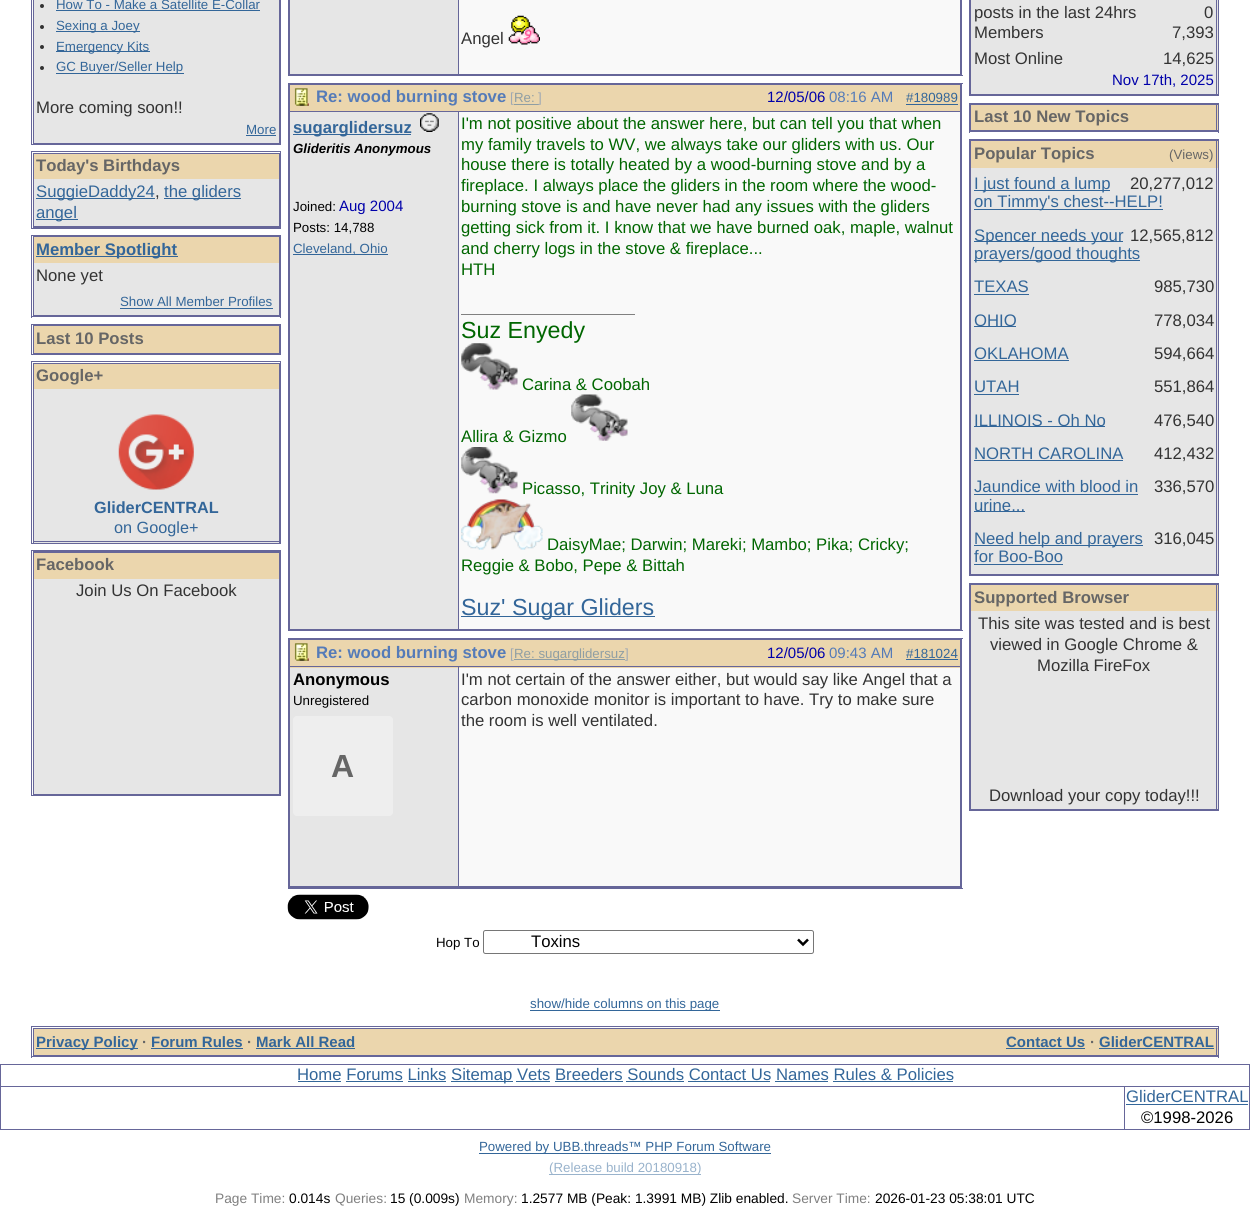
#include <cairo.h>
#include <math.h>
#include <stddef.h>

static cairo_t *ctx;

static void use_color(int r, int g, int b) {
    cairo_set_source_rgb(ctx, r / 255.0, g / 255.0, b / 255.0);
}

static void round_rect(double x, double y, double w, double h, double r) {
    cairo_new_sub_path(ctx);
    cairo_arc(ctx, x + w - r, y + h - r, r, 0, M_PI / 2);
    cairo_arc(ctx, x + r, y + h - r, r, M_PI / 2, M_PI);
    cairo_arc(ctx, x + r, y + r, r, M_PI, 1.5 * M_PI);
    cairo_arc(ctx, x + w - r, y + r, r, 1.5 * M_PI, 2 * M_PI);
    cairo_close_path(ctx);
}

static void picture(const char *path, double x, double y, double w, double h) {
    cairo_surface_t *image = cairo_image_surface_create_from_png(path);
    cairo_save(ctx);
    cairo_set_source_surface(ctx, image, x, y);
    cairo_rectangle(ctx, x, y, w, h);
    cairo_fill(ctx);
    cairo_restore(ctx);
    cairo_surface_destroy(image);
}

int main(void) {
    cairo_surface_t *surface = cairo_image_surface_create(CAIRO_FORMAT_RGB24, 1250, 1217);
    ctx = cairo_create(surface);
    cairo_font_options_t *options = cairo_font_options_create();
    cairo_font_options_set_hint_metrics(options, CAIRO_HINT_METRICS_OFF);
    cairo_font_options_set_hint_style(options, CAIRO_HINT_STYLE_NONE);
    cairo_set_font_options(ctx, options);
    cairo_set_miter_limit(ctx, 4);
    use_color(255, 255, 255);
    cairo_paint(ctx);
    use_color(102, 102, 153);
    cairo_rectangle(ctx, 280, 0, 1, 145);
    cairo_fill(ctx);
    cairo_rectangle(ctx, 31, 144, 250, 1);
    cairo_fill(ctx);
    cairo_rectangle(ctx, 31, 0, 1, 145);
    cairo_fill(ctx);
    cairo_rectangle(ctx, 33, 0, 247, 144);
    cairo_fill(ctx);
    use_color(230, 230, 230);
    cairo_rectangle(ctx, 34, 0, 245, 143);
    cairo_fill(ctx);
    use_color(51, 51, 51);
    cairo_arc(ctx, 42, 6, 2, 0, 2 * M_PI);
    cairo_fill(ctx);
    cairo_select_font_face(ctx, "Liberation Sans", CAIRO_FONT_SLANT_NORMAL, CAIRO_FONT_WEIGHT_NORMAL);
    cairo_set_font_size(ctx, 13.3);
    use_color(51, 102, 153);
    cairo_move_to(ctx, 56, 9);
    cairo_show_text(ctx, "How To - Make a Satellite E-Collar");
    cairo_rectangle(ctx, 56, 10, 204, 1);
    cairo_fill(ctx);
    use_color(51, 51, 51);
    cairo_arc(ctx, 42, 27, 2, 0, 2 * M_PI);
    cairo_fill(ctx);
    use_color(51, 102, 153);
    cairo_rectangle(ctx, 56, 31, 84, 1);
    cairo_fill(ctx);
    cairo_move_to(ctx, 56, 30);
    cairo_show_text(ctx, "Sexing a Joey");
    use_color(51, 51, 51);
    cairo_new_path(ctx);
    cairo_arc(ctx, 42, 47, 2, 0, 2 * M_PI);
    cairo_fill(ctx);
    use_color(51, 102, 153);
    cairo_rectangle(ctx, 56, 51, 94, 1);
    cairo_fill(ctx);
    cairo_move_to(ctx, 56, 51);
    cairo_show_text(ctx, "Emergency Kits");
    use_color(51, 51, 51);
    cairo_new_path(ctx);
    cairo_arc(ctx, 42, 68, 2, 0, 2 * M_PI);
    cairo_fill(ctx);
    use_color(51, 102, 153);
    cairo_rectangle(ctx, 56, 73, 128, 1);
    cairo_fill(ctx);
    cairo_move_to(ctx, 56, 71);
    cairo_show_text(ctx, "GC Buyer/Seller Help");
    cairo_set_font_size(ctx, 16.7);
    use_color(51, 51, 51);
    cairo_move_to(ctx, 36, 113);
    cairo_show_text(ctx, "More coming soon!!");
    cairo_set_font_size(ctx, 13.3);
    use_color(51, 102, 153);
    cairo_move_to(ctx, 246, 134);
    cairo_show_text(ctx, "More");
    cairo_rectangle(ctx, 246, 135, 30, 1);
    cairo_fill(ctx);
    use_color(102, 102, 153);
    cairo_rectangle(ctx, 31, 151, 250, 1);
    cairo_fill(ctx);
    cairo_rectangle(ctx, 280, 151, 1, 78);
    cairo_fill(ctx);
    cairo_rectangle(ctx, 31, 228, 250, 1);
    cairo_fill(ctx);
    cairo_rectangle(ctx, 31, 151, 1, 78);
    cairo_fill(ctx);
    cairo_rectangle(ctx, 33, 154, 246, 74);
    cairo_fill(ctx);
    cairo_rectangle(ctx, 33, 153, 247, 1);
    cairo_fill(ctx);
    cairo_rectangle(ctx, 279, 153, 1, 75);
    cairo_fill(ctx);
    use_color(235, 214, 173);
    cairo_rectangle(ctx, 34, 154, 245, 25);
    cairo_fill(ctx);
    cairo_select_font_face(ctx, "Liberation Sans", CAIRO_FONT_SLANT_NORMAL, CAIRO_FONT_WEIGHT_BOLD);
    cairo_set_font_size(ctx, 16.7);
    use_color(102, 102, 102);
    cairo_move_to(ctx, 36, 171);
    cairo_show_text(ctx, "Today's Birthdays");
    use_color(230, 230, 230);
    cairo_rectangle(ctx, 34, 179, 245, 47);
    cairo_fill(ctx);
    use_color(51, 102, 153);
    cairo_rectangle(ctx, 36, 198, 119, 1);
    cairo_fill(ctx);
    cairo_select_font_face(ctx, "Liberation Sans", CAIRO_FONT_SLANT_NORMAL, CAIRO_FONT_WEIGHT_NORMAL);
    cairo_move_to(ctx, 36, 197);
    cairo_show_text(ctx, "SuggieDaddy24");
    use_color(51, 51, 51);
    cairo_move_to(ctx, 155, 197);
    cairo_show_text(ctx, ",");
    use_color(51, 102, 153);
    cairo_rectangle(ctx, 164, 198, 77, 1);
    cairo_fill(ctx);
    cairo_move_to(ctx, 164, 197);
    cairo_show_text(ctx, "the gliders");
    cairo_rectangle(ctx, 36, 219, 42, 1);
    cairo_fill(ctx);
    cairo_move_to(ctx, 36, 218);
    cairo_show_text(ctx, "angel");
    use_color(102, 102, 153);
    cairo_rectangle(ctx, 31, 235, 250, 1);
    cairo_fill(ctx);
    cairo_rectangle(ctx, 280, 235, 1, 83);
    cairo_fill(ctx);
    cairo_rectangle(ctx, 31, 316, 250, 1);
    cairo_fill(ctx);
    cairo_rectangle(ctx, 31, 235, 1, 83);
    cairo_fill(ctx);
    cairo_rectangle(ctx, 33, 237, 246, 79);
    cairo_fill(ctx);
    cairo_rectangle(ctx, 33, 236, 247, 1);
    cairo_fill(ctx);
    cairo_rectangle(ctx, 279, 236, 1, 80);
    cairo_fill(ctx);
    use_color(235, 214, 173);
    cairo_rectangle(ctx, 34, 237, 245, 26);
    cairo_fill(ctx);
    use_color(51, 102, 153);
    cairo_rectangle(ctx, 36, 256, 142, 1);
    cairo_fill(ctx);
    cairo_select_font_face(ctx, "Liberation Sans", CAIRO_FONT_SLANT_NORMAL, CAIRO_FONT_WEIGHT_BOLD);
    cairo_move_to(ctx, 36, 255);
    cairo_show_text(ctx, "Member Spotlight");
    use_color(230, 230, 230);
    cairo_rectangle(ctx, 34, 263, 245, 52);
    cairo_fill(ctx);
    cairo_select_font_face(ctx, "Liberation Sans", CAIRO_FONT_SLANT_NORMAL, CAIRO_FONT_WEIGHT_NORMAL);
    use_color(51, 51, 51);
    cairo_move_to(ctx, 36, 281);
    cairo_show_text(ctx, "None yet");
    cairo_set_font_size(ctx, 13.3);
    use_color(51, 102, 153);
    cairo_move_to(ctx, 120, 306);
    cairo_show_text(ctx, "Show All Member Profiles");
    cairo_rectangle(ctx, 120, 308, 153, 1);
    cairo_fill(ctx);
    use_color(102, 102, 153);
    cairo_rectangle(ctx, 31, 324, 250, 1);
    cairo_fill(ctx);
    cairo_rectangle(ctx, 280, 324, 1, 31);
    cairo_fill(ctx);
    cairo_rectangle(ctx, 31, 354, 250, 1);
    cairo_fill(ctx);
    cairo_rectangle(ctx, 31, 324, 1, 31);
    cairo_fill(ctx);
    cairo_rectangle(ctx, 33, 326, 246, 28);
    cairo_fill(ctx);
    cairo_rectangle(ctx, 33, 325, 247, 1);
    cairo_fill(ctx);
    cairo_rectangle(ctx, 279, 325, 1, 29);
    cairo_fill(ctx);
    use_color(235, 214, 173);
    cairo_rectangle(ctx, 34, 326, 245, 27);
    cairo_fill(ctx);
    cairo_select_font_face(ctx, "Liberation Sans", CAIRO_FONT_SLANT_NORMAL, CAIRO_FONT_WEIGHT_BOLD);
    cairo_set_font_size(ctx, 16.7);
    use_color(102, 102, 102);
    cairo_move_to(ctx, 36, 344);
    cairo_show_text(ctx, "Last 10 Posts");
    use_color(102, 102, 153);
    cairo_rectangle(ctx, 31, 361, 250, 1);
    cairo_fill(ctx);
    cairo_rectangle(ctx, 280, 361, 1, 183);
    cairo_fill(ctx);
    cairo_rectangle(ctx, 31, 543, 250, 1);
    cairo_fill(ctx);
    cairo_rectangle(ctx, 31, 361, 1, 183);
    cairo_fill(ctx);
    cairo_rectangle(ctx, 33, 364, 1, 179);
    cairo_fill(ctx);
    cairo_rectangle(ctx, 33, 363, 247, 1);
    cairo_fill(ctx);
    cairo_rectangle(ctx, 279, 363, 1, 180);
    cairo_fill(ctx);
    use_color(230, 230, 230);
    cairo_rectangle(ctx, 34, 389, 245, 154);
    cairo_fill(ctx);
    use_color(102, 102, 153);
    cairo_rectangle(ctx, 33, 541, 247, 1);
    cairo_fill(ctx);
    use_color(235, 214, 173);
    cairo_rectangle(ctx, 34, 364, 245, 25);
    cairo_fill(ctx);
    use_color(102, 102, 102);
    cairo_move_to(ctx, 36, 381);
    cairo_show_text(ctx, "Google+");
    picture("img1.png", 118, 414, 76, 76);
    cairo_set_font_size(ctx, 16.25);
    use_color(51, 102, 153);
    cairo_move_to(ctx, 94, 513);
    cairo_show_text(ctx, "GliderCENTRAL");
    cairo_select_font_face(ctx, "Liberation Sans", CAIRO_FONT_SLANT_NORMAL, CAIRO_FONT_WEIGHT_NORMAL);
    cairo_move_to(ctx, 114, 533);
    cairo_show_text(ctx, "on Google+");
    use_color(102, 102, 153);
    cairo_rectangle(ctx, 31, 550, 250, 1);
    cairo_fill(ctx);
    cairo_rectangle(ctx, 280, 550, 1, 246);
    cairo_fill(ctx);
    cairo_rectangle(ctx, 31, 795, 250, 1);
    cairo_fill(ctx);
    cairo_rectangle(ctx, 31, 550, 1, 246);
    cairo_fill(ctx);
    cairo_rectangle(ctx, 33, 551, 246, 243);
    cairo_fill(ctx);
    cairo_rectangle(ctx, 279, 551, 1, 244);
    cairo_fill(ctx);
    cairo_rectangle(ctx, 33, 794, 247, 1);
    cairo_fill(ctx);
    use_color(235, 214, 173);
    cairo_rectangle(ctx, 34, 553, 245, 26);
    cairo_fill(ctx);
    cairo_select_font_face(ctx, "Liberation Sans", CAIRO_FONT_SLANT_NORMAL, CAIRO_FONT_WEIGHT_BOLD);
    cairo_set_font_size(ctx, 16.7);
    use_color(102, 102, 102);
    cairo_move_to(ctx, 36, 570);
    cairo_show_text(ctx, "Facebook");
    use_color(230, 230, 230);
    cairo_rectangle(ctx, 34, 579, 245, 215);
    cairo_fill(ctx);
    cairo_select_font_face(ctx, "Liberation Sans", CAIRO_FONT_SLANT_NORMAL, CAIRO_FONT_WEIGHT_NORMAL);
    use_color(51, 51, 51);
    cairo_move_to(ctx, 76, 596);
    cairo_show_text(ctx, "Join Us On Facebook");
    use_color(102, 102, 153);
    cairo_rectangle(ctx, 961, 0, 1, 76);
    cairo_fill(ctx);
    cairo_rectangle(ctx, 288, 75, 675, 1);
    cairo_fill(ctx);
    cairo_rectangle(ctx, 288, 0, 1, 76);
    cairo_fill(ctx);
    cairo_rectangle(ctx, 289, 0, 672, 75);
    cairo_fill(ctx);
    use_color(230, 230, 230);
    cairo_rectangle(ctx, 290, 0, 168, 74);
    cairo_fill(ctx);
    use_color(249, 249, 249);
    cairo_rectangle(ctx, 459, 0, 501, 74);
    cairo_fill(ctx);
    use_color(51, 51, 51);
    cairo_move_to(ctx, 461, 44);
    cairo_show_text(ctx, "Angel");
    picture("img2.png", 508, 15, 32, 30);
    use_color(102, 102, 153);
    cairo_rectangle(ctx, 288, 83, 675, 1);
    cairo_fill(ctx);
    cairo_rectangle(ctx, 961, 83, 1, 548);
    cairo_fill(ctx);
    cairo_rectangle(ctx, 288, 630, 675, 1);
    cairo_fill(ctx);
    cairo_rectangle(ctx, 288, 83, 1, 548);
    cairo_fill(ctx);
    cairo_rectangle(ctx, 289, 84, 672, 546);
    cairo_fill(ctx);
    use_color(235, 214, 173);
    cairo_rectangle(ctx, 290, 85, 670, 26);
    cairo_fill(ctx);
    picture("img3.png", 294, 88, 15, 18);
    cairo_select_font_face(ctx, "Liberation Sans", CAIRO_FONT_SLANT_NORMAL, CAIRO_FONT_WEIGHT_BOLD);
    use_color(85, 123, 184);
    cairo_move_to(ctx, 316, 102);
    cairo_show_text(ctx, "Re: wood burning stove");
    cairo_select_font_face(ctx, "Liberation Sans", CAIRO_FONT_SLANT_NORMAL, CAIRO_FONT_WEIGHT_NORMAL);
    cairo_set_font_size(ctx, 13.3);
    use_color(160, 169, 179);
    cairo_move_to(ctx, 510, 102);
    cairo_show_text(ctx, "[");
    use_color(143, 158, 163);
    cairo_rectangle(ctx, 514, 104, 25, 1);
    cairo_fill(ctx);
    cairo_move_to(ctx, 514, 102);
    cairo_show_text(ctx, "Re:");
    use_color(160, 169, 179);
    cairo_move_to(ctx, 538, 102);
    cairo_show_text(ctx, "]");
    cairo_set_font_size(ctx, 15);
    use_color(0, 0, 170);
    cairo_move_to(ctx, 767, 102);
    cairo_show_text(ctx, "12/05/06");
    use_color(85, 123, 184);
    cairo_move_to(ctx, 829, 102);
    cairo_show_text(ctx, "08:16 AM");
    cairo_set_font_size(ctx, 13.3);
    use_color(51, 102, 153);
    cairo_move_to(ctx, 906, 102);
    cairo_show_text(ctx, "#180989");
    cairo_rectangle(ctx, 906, 104, 52, 1);
    cairo_fill(ctx);
    use_color(230, 230, 230);
    cairo_rectangle(ctx, 290, 112, 168, 517);
    cairo_fill(ctx);
    use_color(51, 102, 153);
    cairo_rectangle(ctx, 293, 134, 118, 1);
    cairo_fill(ctx);
    cairo_select_font_face(ctx, "Liberation Sans", CAIRO_FONT_SLANT_NORMAL, CAIRO_FONT_WEIGHT_BOLD);
    cairo_set_font_size(ctx, 16.7);
    cairo_move_to(ctx, 293, 133);
    cairo_show_text(ctx, "sugarglidersuz");
    picture("img4.png", 420, 113, 19, 19);
    cairo_select_font_face(ctx, "Liberation Sans", CAIRO_FONT_SLANT_ITALIC, CAIRO_FONT_WEIGHT_BOLD);
    cairo_set_font_size(ctx, 13.3);
    use_color(0, 0, 0);
    cairo_move_to(ctx, 293, 153);
    cairo_show_text(ctx, "Glideritis Anonymous");
    cairo_select_font_face(ctx, "Liberation Sans", CAIRO_FONT_SLANT_NORMAL, CAIRO_FONT_WEIGHT_NORMAL);
    cairo_move_to(ctx, 293, 211);
    cairo_show_text(ctx, "Joined:");
    cairo_set_font_size(ctx, 15);
    use_color(0, 0, 170);
    cairo_move_to(ctx, 339, 211);
    cairo_show_text(ctx, "Aug 2004");
    cairo_set_font_size(ctx, 13.3);
    use_color(0, 0, 0);
    cairo_move_to(ctx, 293, 232);
    cairo_show_text(ctx, "Posts: 14,788");
    use_color(51, 102, 153);
    cairo_rectangle(ctx, 293, 254, 95, 1);
    cairo_fill(ctx);
    cairo_move_to(ctx, 293, 253);
    cairo_show_text(ctx, "Cleveland, Ohio");
    use_color(249, 249, 249);
    cairo_rectangle(ctx, 459, 112, 501, 517);
    cairo_fill(ctx);
    cairo_set_font_size(ctx, 16.7);
    use_color(0, 102, 0);
    cairo_move_to(ctx, 461, 129);
    cairo_show_text(ctx, "I'm not positive about the answer here, but can tell you that when");
    cairo_move_to(ctx, 461, 150);
    cairo_show_text(ctx, "my family travels to WV, we always take our gliders with us. Our");
    cairo_move_to(ctx, 461, 170);
    cairo_show_text(ctx, "house there is totally heated by a wood-burning stove and by a");
    cairo_move_to(ctx, 461, 191);
    cairo_show_text(ctx, "fireplace. I always place the gliders in the room where the wood-");
    cairo_move_to(ctx, 461, 212);
    cairo_show_text(ctx, "burning stove is and have never had any issues with the gliders");
    cairo_move_to(ctx, 461, 233);
    cairo_show_text(ctx, "getting sick from it. I know that we have burned oak, maple, walnut");
    cairo_move_to(ctx, 461, 254);
    cairo_show_text(ctx, "and cherry logs in the stove & fireplace...");
    cairo_move_to(ctx, 461, 275);
    cairo_show_text(ctx, "HTH");
    use_color(128, 128, 128);
    cairo_rectangle(ctx, 461, 314, 174, 1);
    cairo_fill(ctx);
    cairo_set_font_size(ctx, 23.25);
    use_color(0, 102, 0);
    cairo_move_to(ctx, 461, 338);
    cairo_show_text(ctx, "Suz Enyedy");
    picture("img5.png", 461, 343, 57, 47);
    cairo_set_font_size(ctx, 16.7);
    cairo_move_to(ctx, 522, 390);
    cairo_show_text(ctx, "Carina & Coobah");
    cairo_move_to(ctx, 461, 442);
    cairo_show_text(ctx, "Allira & Gizmo");
    picture("img6.png", 571, 394, 57, 47);
    picture("img7.png", 461, 447, 57, 47);
    cairo_move_to(ctx, 522, 494);
    cairo_show_text(ctx, "Picasso, Trinity Joy & Luna");
    picture("img8.png", 461, 499, 82, 51);
    cairo_move_to(ctx, 547, 550);
    cairo_show_text(ctx, "DaisyMae; Darwin; Mareki; Mambo; Pika; Cricky;");
    cairo_move_to(ctx, 461, 571);
    cairo_show_text(ctx, "Reggie & Bobo, Pepe & Bittah");
    use_color(51, 102, 153);
    cairo_rectangle(ctx, 461, 616, 194, 1);
    cairo_fill(ctx);
    cairo_set_font_size(ctx, 23.25);
    cairo_move_to(ctx, 461, 615);
    cairo_show_text(ctx, "Suz' Sugar Gliders");
    use_color(102, 102, 153);
    cairo_rectangle(ctx, 288, 638, 675, 1);
    cairo_fill(ctx);
    cairo_rectangle(ctx, 961, 638, 1, 251);
    cairo_fill(ctx);
    cairo_rectangle(ctx, 288, 888, 675, 1);
    cairo_fill(ctx);
    cairo_rectangle(ctx, 288, 638, 1, 251);
    cairo_fill(ctx);
    cairo_rectangle(ctx, 289, 639, 672, 249);
    cairo_fill(ctx);
    use_color(235, 214, 173);
    cairo_rectangle(ctx, 290, 640, 670, 28);
    cairo_fill(ctx);
    use_color(102, 102, 153);
    cairo_rectangle(ctx, 458, 666, 1, 2);
    cairo_fill(ctx);
    cairo_rectangle(ctx, 290, 666, 671, 1);
    cairo_fill(ctx);
    picture("img3.png", 294, 643, 15, 18);
    cairo_select_font_face(ctx, "Liberation Sans", CAIRO_FONT_SLANT_NORMAL, CAIRO_FONT_WEIGHT_BOLD);
    cairo_set_font_size(ctx, 16.7);
    use_color(85, 123, 184);
    cairo_move_to(ctx, 316, 658);
    cairo_show_text(ctx, "Re: wood burning stove");
    cairo_select_font_face(ctx, "Liberation Sans", CAIRO_FONT_SLANT_NORMAL, CAIRO_FONT_WEIGHT_NORMAL);
    cairo_set_font_size(ctx, 13.3);
    use_color(160, 169, 179);
    cairo_move_to(ctx, 510, 658);
    cairo_show_text(ctx, "[");
    use_color(143, 158, 163);
    cairo_rectangle(ctx, 514, 659, 111, 1);
    cairo_fill(ctx);
    cairo_move_to(ctx, 514, 658);
    cairo_show_text(ctx, "Re: sugarglidersuz");
    use_color(160, 169, 179);
    cairo_move_to(ctx, 625, 658);
    cairo_show_text(ctx, "]");
    cairo_set_font_size(ctx, 15);
    use_color(0, 0, 170);
    cairo_move_to(ctx, 767, 658);
    cairo_show_text(ctx, "12/05/06");
    use_color(85, 123, 184);
    cairo_move_to(ctx, 829, 658);
    cairo_show_text(ctx, "09:43 AM");
    cairo_set_font_size(ctx, 13.3);
    use_color(51, 102, 153);
    cairo_move_to(ctx, 906, 658);
    cairo_show_text(ctx, "#181024");
    cairo_rectangle(ctx, 906, 659, 52, 1);
    cairo_fill(ctx);
    use_color(230, 230, 230);
    cairo_rectangle(ctx, 290, 668, 168, 218);
    cairo_fill(ctx);
    cairo_select_font_face(ctx, "Liberation Sans", CAIRO_FONT_SLANT_NORMAL, CAIRO_FONT_WEIGHT_BOLD);
    cairo_set_font_size(ctx, 16.7);
    use_color(0, 0, 0);
    cairo_move_to(ctx, 293, 685);
    cairo_show_text(ctx, "Anonymous");
    cairo_select_font_face(ctx, "Liberation Sans", CAIRO_FONT_SLANT_NORMAL, CAIRO_FONT_WEIGHT_NORMAL);
    cairo_set_font_size(ctx, 13.3);
    cairo_move_to(ctx, 293, 705);
    cairo_show_text(ctx, "Unregistered");
    use_color(238, 238, 238);
    round_rect(293, 716, 100, 100, 4);
    cairo_fill(ctx);
    cairo_select_font_face(ctx, "Liberation Sans", CAIRO_FONT_SLANT_NORMAL, CAIRO_FONT_WEIGHT_BOLD);
    cairo_set_font_size(ctx, 32);
    use_color(102, 102, 102);
    cairo_move_to(ctx, 331, 777);
    cairo_show_text(ctx, "A");
    use_color(249, 249, 249);
    cairo_rectangle(ctx, 459, 668, 501, 218);
    cairo_fill(ctx);
    cairo_select_font_face(ctx, "Liberation Sans", CAIRO_FONT_SLANT_NORMAL, CAIRO_FONT_WEIGHT_NORMAL);
    cairo_set_font_size(ctx, 16.7);
    use_color(51, 51, 51);
    cairo_move_to(ctx, 461, 685);
    cairo_show_text(ctx, "I'm not certain of the answer either, but would say like Angel that a");
    cairo_move_to(ctx, 461, 705);
    cairo_show_text(ctx, "carbon monoxide monitor is important to have. Try to make sure");
    cairo_move_to(ctx, 461, 726);
    cairo_show_text(ctx, "the room is well ventilated.");
    picture("img9.png", 287, 894, 82, 26);
    cairo_set_font_size(ctx, 13.3);
    use_color(0, 0, 0);
    cairo_move_to(ctx, 436, 947);
    cairo_show_text(ctx, "Hop To");
    round_rect(483.5, 930.5, 330, 23, 2);
    use_color(118, 118, 118);
    cairo_set_line_width(ctx, 1);
    cairo_stroke(ctx);
    cairo_new_path(ctx);
    cairo_move_to(ctx, 798, 939.5);
    cairo_line_to(ctx, 803, 944.5);
    cairo_line_to(ctx, 808, 939.5);
    use_color(0, 0, 0);
    cairo_set_line_width(ctx, 2.5);
    cairo_stroke(ctx);
    cairo_set_font_size(ctx, 16.7);
    cairo_move_to(ctx, 531, 947);
    cairo_show_text(ctx, "Toxins");
    use_color(102, 102, 153);
    cairo_rectangle(ctx, 1218, 0, 1, 96);
    cairo_fill(ctx);
    cairo_rectangle(ctx, 969, 95, 250, 1);
    cairo_fill(ctx);
    cairo_rectangle(ctx, 969, 0, 1, 96);
    cairo_fill(ctx);
    cairo_rectangle(ctx, 970, 0, 248, 95);
    cairo_fill(ctx);
    use_color(230, 230, 230);
    cairo_rectangle(ctx, 971, 0, 247, 94);
    cairo_fill(ctx);
    use_color(102, 102, 153);
    cairo_rectangle(ctx, 1216, 0, 1, 95);
    cairo_fill(ctx);
    use_color(51, 51, 51);
    cairo_move_to(ctx, 974, 18);
    cairo_show_text(ctx, "posts in the last 24hrs");
    cairo_move_to(ctx, 1204, 18);
    cairo_show_text(ctx, "0");
    cairo_move_to(ctx, 974, 38);
    cairo_show_text(ctx, "Members");
    cairo_move_to(ctx, 1172, 38);
    cairo_show_text(ctx, "7,393");
    cairo_move_to(ctx, 974, 64);
    cairo_show_text(ctx, "Most Online");
    cairo_move_to(ctx, 1163, 64);
    cairo_show_text(ctx, "14,625");
    cairo_set_font_size(ctx, 15);
    use_color(0, 0, 170);
    cairo_move_to(ctx, 1112, 85);
    cairo_show_text(ctx, "Nov 17th, 2025");
    use_color(102, 102, 153);
    cairo_rectangle(ctx, 969, 103, 250, 1);
    cairo_fill(ctx);
    cairo_rectangle(ctx, 1218, 103, 1, 30);
    cairo_fill(ctx);
    cairo_rectangle(ctx, 969, 131, 250, 1);
    cairo_fill(ctx);
    cairo_rectangle(ctx, 969, 103, 1, 30);
    cairo_fill(ctx);
    cairo_rectangle(ctx, 970, 105, 1, 25);
    cairo_fill(ctx);
    cairo_rectangle(ctx, 970, 104, 248, 1);
    cairo_fill(ctx);
    use_color(235, 214, 173);
    cairo_rectangle(ctx, 971, 105, 247, 25);
    cairo_fill(ctx);
    use_color(102, 102, 153);
    cairo_rectangle(ctx, 1216, 104, 1, 27);
    cairo_fill(ctx);
    cairo_rectangle(ctx, 970, 130, 248, 1);
    cairo_fill(ctx);
    cairo_select_font_face(ctx, "Liberation Sans", CAIRO_FONT_SLANT_NORMAL, CAIRO_FONT_WEIGHT_BOLD);
    cairo_set_font_size(ctx, 16.7);
    use_color(102, 102, 102);
    cairo_move_to(ctx, 974, 122);
    cairo_show_text(ctx, "Last 10 New Topics");
    use_color(102, 102, 153);
    cairo_rectangle(ctx, 969, 139, 250, 1);
    cairo_fill(ctx);
    cairo_rectangle(ctx, 1218, 139, 1, 437);
    cairo_fill(ctx);
    cairo_rectangle(ctx, 969, 575, 250, 1);
    cairo_fill(ctx);
    cairo_rectangle(ctx, 969, 139, 1, 437);
    cairo_fill(ctx);
    cairo_rectangle(ctx, 970, 140, 248, 434);
    cairo_fill(ctx);
    use_color(235, 214, 173);
    cairo_rectangle(ctx, 971, 141, 247, 27);
    cairo_fill(ctx);
    use_color(230, 230, 230);
    cairo_rectangle(ctx, 971, 168, 247, 406);
    cairo_fill(ctx);
    use_color(102, 102, 153);
    cairo_rectangle(ctx, 1216, 140, 1, 435);
    cairo_fill(ctx);
    cairo_rectangle(ctx, 970, 574, 248, 1);
    cairo_fill(ctx);
    use_color(102, 102, 102);
    cairo_move_to(ctx, 974, 159);
    cairo_show_text(ctx, "Popular Topics");
    cairo_select_font_face(ctx, "Liberation Sans", CAIRO_FONT_SLANT_NORMAL, CAIRO_FONT_WEIGHT_NORMAL);
    cairo_set_font_size(ctx, 13.3);
    cairo_move_to(ctx, 1169, 159);
    cairo_show_text(ctx, "(Views)");
    use_color(51, 102, 153);
    cairo_rectangle(ctx, 974, 190, 136, 1);
    cairo_fill(ctx);
    cairo_set_font_size(ctx, 16.7);
    cairo_move_to(ctx, 974, 189);
    cairo_show_text(ctx, "I just found a lump");
    use_color(51, 51, 51);
    cairo_move_to(ctx, 1130, 189);
    cairo_show_text(ctx, "20,277,012");
    use_color(51, 102, 153);
    cairo_rectangle(ctx, 974, 209, 189, 1);
    cairo_fill(ctx);
    cairo_move_to(ctx, 974, 207);
    cairo_show_text(ctx, "on Timmy's chest--HELP!");
    cairo_rectangle(ctx, 974, 241, 149, 1);
    cairo_fill(ctx);
    cairo_move_to(ctx, 974, 241);
    cairo_show_text(ctx, "Spencer needs your");
    use_color(51, 51, 51);
    cairo_move_to(ctx, 1130, 241);
    cairo_show_text(ctx, "12,565,812");
    use_color(51, 102, 153);
    cairo_rectangle(ctx, 974, 260, 166, 1);
    cairo_fill(ctx);
    cairo_move_to(ctx, 974, 259);
    cairo_show_text(ctx, "prayers/good thoughts");
    cairo_move_to(ctx, 974, 292);
    cairo_show_text(ctx, "TEXAS");
    cairo_rectangle(ctx, 974, 294, 55, 1);
    cairo_fill(ctx);
    use_color(51, 51, 51);
    cairo_move_to(ctx, 1154, 292);
    cairo_show_text(ctx, "985,730");
    use_color(51, 102, 153);
    cairo_rectangle(ctx, 974, 326, 42, 1);
    cairo_fill(ctx);
    cairo_move_to(ctx, 974, 326);
    cairo_show_text(ctx, "OHIO");
    use_color(51, 51, 51);
    cairo_move_to(ctx, 1154, 326);
    cairo_show_text(ctx, "778,034");
    use_color(51, 102, 153);
    cairo_move_to(ctx, 974, 359);
    cairo_show_text(ctx, "OKLAHOMA");
    cairo_rectangle(ctx, 974, 360, 95, 1);
    cairo_fill(ctx);
    use_color(51, 51, 51);
    cairo_move_to(ctx, 1154, 359);
    cairo_show_text(ctx, "594,664");
    use_color(51, 102, 153);
    cairo_move_to(ctx, 974, 392);
    cairo_show_text(ctx, "UTAH");
    cairo_rectangle(ctx, 974, 394, 45, 1);
    cairo_fill(ctx);
    use_color(51, 51, 51);
    cairo_move_to(ctx, 1154, 392);
    cairo_show_text(ctx, "551,864");
    use_color(51, 102, 153);
    cairo_rectangle(ctx, 974, 426, 131, 1);
    cairo_fill(ctx);
    cairo_move_to(ctx, 974, 426);
    cairo_show_text(ctx, "ILLINOIS - Oh No");
    use_color(51, 51, 51);
    cairo_move_to(ctx, 1154, 426);
    cairo_show_text(ctx, "476,540");
    use_color(51, 102, 153);
    cairo_move_to(ctx, 974, 459);
    cairo_show_text(ctx, "NORTH CAROLINA");
    cairo_rectangle(ctx, 974, 460, 149, 1);
    cairo_fill(ctx);
    use_color(51, 51, 51);
    cairo_move_to(ctx, 1154, 459);
    cairo_show_text(ctx, "412,432");
    use_color(51, 102, 153);
    cairo_move_to(ctx, 974, 492);
    cairo_show_text(ctx, "Jaundice with blood in");
    cairo_rectangle(ctx, 974, 494, 164, 1);
    cairo_fill(ctx);
    use_color(51, 51, 51);
    cairo_move_to(ctx, 1154, 492);
    cairo_show_text(ctx, "336,570");
    use_color(51, 102, 153);
    cairo_rectangle(ctx, 974, 511, 51, 1);
    cairo_fill(ctx);
    cairo_move_to(ctx, 974, 511);
    cairo_show_text(ctx, "urine...");
    cairo_rectangle(ctx, 974, 545, 169, 1);
    cairo_fill(ctx);
    cairo_move_to(ctx, 974, 544);
    cairo_show_text(ctx, "Need help and prayers");
    use_color(51, 51, 51);
    cairo_move_to(ctx, 1154, 544);
    cairo_show_text(ctx, "316,045");
    use_color(51, 102, 153);
    cairo_move_to(ctx, 974, 562);
    cairo_show_text(ctx, "for Boo-Boo");
    cairo_rectangle(ctx, 974, 564, 89, 1);
    cairo_fill(ctx);
    use_color(102, 102, 153);
    cairo_rectangle(ctx, 969, 583, 250, 1);
    cairo_fill(ctx);
    cairo_rectangle(ctx, 1218, 583, 1, 228);
    cairo_fill(ctx);
    cairo_rectangle(ctx, 969, 810, 250, 1);
    cairo_fill(ctx);
    cairo_rectangle(ctx, 969, 583, 1, 228);
    cairo_fill(ctx);
    cairo_rectangle(ctx, 970, 584, 248, 225);
    cairo_fill(ctx);
    use_color(235, 214, 173);
    cairo_rectangle(ctx, 971, 585, 247, 26);
    cairo_fill(ctx);
    use_color(230, 230, 230);
    cairo_rectangle(ctx, 971, 611, 247, 198);
    cairo_fill(ctx);
    use_color(102, 102, 153);
    cairo_rectangle(ctx, 1216, 584, 1, 226);
    cairo_fill(ctx);
    cairo_rectangle(ctx, 970, 809, 248, 1);
    cairo_fill(ctx);
    cairo_select_font_face(ctx, "Liberation Sans", CAIRO_FONT_SLANT_NORMAL, CAIRO_FONT_WEIGHT_BOLD);
    use_color(102, 102, 102);
    cairo_move_to(ctx, 974, 603);
    cairo_show_text(ctx, "Supported Browser");
    cairo_select_font_face(ctx, "Liberation Sans", CAIRO_FONT_SLANT_NORMAL, CAIRO_FONT_WEIGHT_NORMAL);
    use_color(51, 51, 51);
    cairo_move_to(ctx, 978, 629);
    cairo_show_text(ctx, "This site was tested and is best");
    cairo_move_to(ctx, 990, 650);
    cairo_show_text(ctx, "viewed in Google Chrome &");
    cairo_move_to(ctx, 1037, 671);
    cairo_show_text(ctx, "Mozilla FireFox");
    cairo_move_to(ctx, 989, 801);
    cairo_show_text(ctx, "Download your copy today!!!");
    use_color(51, 102, 153);
    cairo_rectangle(ctx, 530, 1010, 190, 1);
    cairo_fill(ctx);
    cairo_set_font_size(ctx, 13.3);
    cairo_move_to(ctx, 530, 1008);
    cairo_show_text(ctx, "show/hide columns on this page");
    use_color(102, 102, 153);
    cairo_rectangle(ctx, 31, 1026, 1188, 1);
    cairo_fill(ctx);
    cairo_rectangle(ctx, 1218, 1026, 1, 32);
    cairo_fill(ctx);
    cairo_rectangle(ctx, 31, 1056, 1188, 1);
    cairo_fill(ctx);
    cairo_rectangle(ctx, 31, 1026, 1, 32);
    cairo_fill(ctx);
    cairo_rectangle(ctx, 33, 1028, 1185, 28);
    cairo_fill(ctx);
    use_color(235, 214, 173);
    cairo_rectangle(ctx, 34, 1029, 1184, 26);
    cairo_fill(ctx);
    use_color(102, 102, 153);
    cairo_rectangle(ctx, 1216, 1028, 1, 28);
    cairo_fill(ctx);
    use_color(51, 102, 153);
    cairo_rectangle(ctx, 36, 1048, 102, 1);
    cairo_fill(ctx);
    cairo_select_font_face(ctx, "Liberation Sans", CAIRO_FONT_SLANT_NORMAL, CAIRO_FONT_WEIGHT_BOLD);
    cairo_set_font_size(ctx, 15);
    cairo_move_to(ctx, 36, 1047);
    cairo_show_text(ctx, "Privacy Policy");
    use_color(102, 102, 102);
    cairo_move_to(ctx, 142, 1047);
    cairo_show_text(ctx, "·");
    use_color(51, 102, 153);
    cairo_move_to(ctx, 151, 1047);
    cairo_show_text(ctx, "Forum Rules");
    cairo_rectangle(ctx, 151, 1048, 92, 1);
    cairo_fill(ctx);
    use_color(102, 102, 102);
    cairo_move_to(ctx, 247, 1047);
    cairo_show_text(ctx, "·");
    use_color(51, 102, 153);
    cairo_move_to(ctx, 256, 1047);
    cairo_show_text(ctx, "Mark All Read");
    cairo_rectangle(ctx, 256, 1048, 99, 1);
    cairo_fill(ctx);
    cairo_move_to(ctx, 1006, 1047);
    cairo_show_text(ctx, "Contact Us");
    cairo_rectangle(ctx, 1006, 1048, 79, 1);
    cairo_fill(ctx);
    use_color(102, 102, 102);
    cairo_move_to(ctx, 1090, 1047);
    cairo_show_text(ctx, "·");
    use_color(51, 102, 153);
    cairo_move_to(ctx, 1099, 1047);
    cairo_show_text(ctx, "GliderCENTRAL");
    cairo_rectangle(ctx, 1099, 1048, 115, 1);
    cairo_fill(ctx);
    use_color(102, 102, 153);
    cairo_rectangle(ctx, 0, 1064, 1250, 1);
    cairo_fill(ctx);
    cairo_rectangle(ctx, 1249, 1064, 1, 66);
    cairo_fill(ctx);
    cairo_rectangle(ctx, 0, 1129, 1250, 1);
    cairo_fill(ctx);
    cairo_rectangle(ctx, 0, 1064, 1, 66);
    cairo_fill(ctx);
    cairo_select_font_face(ctx, "Liberation Sans", CAIRO_FONT_SLANT_NORMAL, CAIRO_FONT_WEIGHT_NORMAL);
    cairo_set_font_size(ctx, 16.7);
    use_color(51, 102, 153);
    cairo_move_to(ctx, 297, 1080);
    cairo_show_text(ctx, "Home Forums Links");
    cairo_rectangle(ctx, 298, 1081, 43, 1);
    cairo_fill(ctx);
    cairo_rectangle(ctx, 451, 1081, 62, 1);
    cairo_fill(ctx);
    cairo_move_to(ctx, 451, 1080);
    cairo_show_text(ctx, "Sitemap Vets Breeders Sounds Contact Us Names Rules & Policies");
    cairo_rectangle(ctx, 346, 1081, 57, 1);
    cairo_fill(ctx);
    cairo_rectangle(ctx, 408, 1081, 38, 1);
    cairo_fill(ctx);
    cairo_rectangle(ctx, 516, 1081, 34, 1);
    cairo_fill(ctx);
    cairo_rectangle(ctx, 555, 1081, 68, 1);
    cairo_fill(ctx);
    cairo_rectangle(ctx, 626, 1081, 58, 1);
    cairo_fill(ctx);
    cairo_rectangle(ctx, 688, 1081, 82, 1);
    cairo_fill(ctx);
    cairo_rectangle(ctx, 775, 1081, 53, 1);
    cairo_fill(ctx);
    cairo_rectangle(ctx, 833, 1081, 120, 1);
    cairo_fill(ctx);
    use_color(102, 102, 153);
    cairo_rectangle(ctx, 1124, 1086, 126, 1);
    cairo_fill(ctx);
    cairo_rectangle(ctx, 1124, 1086, 1, 44);
    cairo_fill(ctx);
    cairo_rectangle(ctx, 0, 1086, 1125, 1);
    cairo_fill(ctx);
    use_color(51, 102, 153);
    cairo_move_to(ctx, 1126, 1102);
    cairo_show_text(ctx, "GliderCENTRAL");
    cairo_rectangle(ctx, 1126, 1104, 122, 1);
    cairo_fill(ctx);
    use_color(0, 0, 0);
    cairo_move_to(ctx, 1141, 1123);
    cairo_show_text(ctx, "©1998-2026");
    use_color(51, 102, 153);
    cairo_rectangle(ctx, 479, 1153, 292, 1);
    cairo_fill(ctx);
    cairo_set_font_size(ctx, 13.3);
    cairo_move_to(ctx, 479, 1151);
    cairo_show_text(ctx, "Powered by UBB.threads™ PHP Forum Software");
    use_color(153, 179, 204);
    cairo_rectangle(ctx, 549, 1174, 152, 1);
    cairo_fill(ctx);
    cairo_move_to(ctx, 549, 1172);
    cairo_show_text(ctx, "(Release build 20180918)");
    cairo_set_font_size(ctx, 13.75);
    use_color(128, 128, 128);
    cairo_move_to(ctx, 215, 1203);
    cairo_show_text(ctx, "Page Time:");
    use_color(0, 0, 0);
    cairo_move_to(ctx, 289, 1203);
    cairo_show_text(ctx, "0.014s");
    use_color(128, 128, 128);
    cairo_move_to(ctx, 335, 1203);
    cairo_show_text(ctx, "Queries:");
    use_color(0, 0, 0);
    cairo_move_to(ctx, 390, 1203);
    cairo_show_text(ctx, "15 (0.009s)");
    use_color(128, 128, 128);
    cairo_move_to(ctx, 464, 1203);
    cairo_show_text(ctx, "Memory:");
    use_color(0, 0, 0);
    cairo_move_to(ctx, 521, 1203);
    cairo_show_text(ctx, "1.2577 MB (Peak: 1.3991 MB) Zlib enabled.");
    use_color(128, 128, 128);
    cairo_move_to(ctx, 792, 1203);
    cairo_show_text(ctx, "Server Time:");
    use_color(0, 0, 0);
    cairo_move_to(ctx, 875, 1203);
    cairo_show_text(ctx, "2026-01-23 05:38:01 UTC");
    cairo_surface_write_to_png(surface, "result.png");
    cairo_font_options_destroy(options);
    cairo_destroy(ctx);
    cairo_surface_destroy(surface);
    return 0;
}
